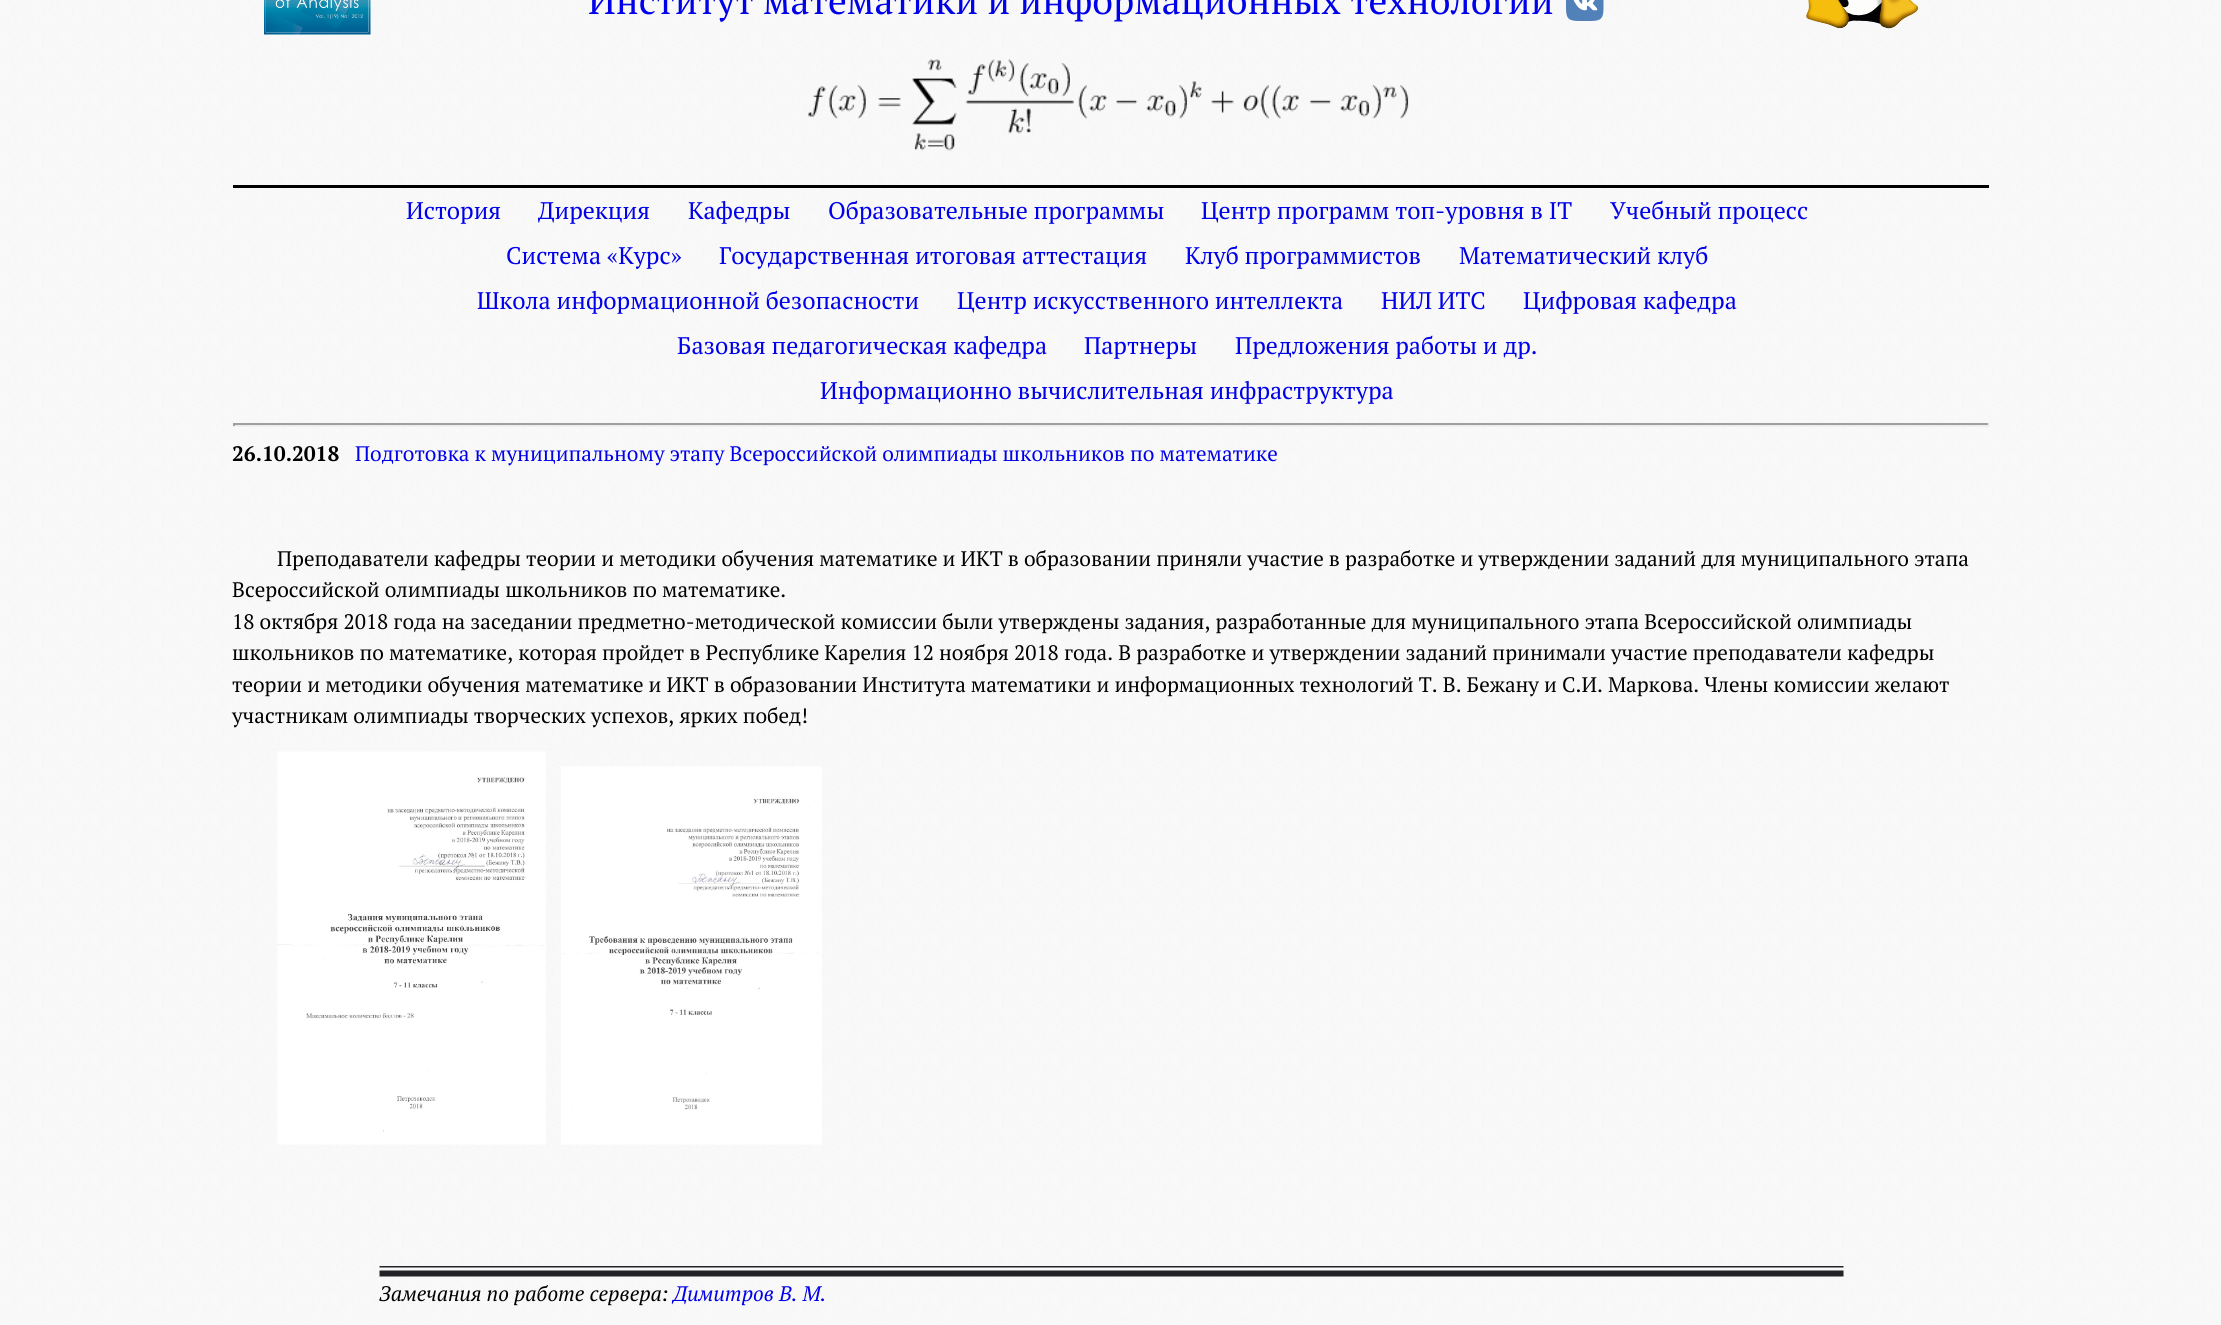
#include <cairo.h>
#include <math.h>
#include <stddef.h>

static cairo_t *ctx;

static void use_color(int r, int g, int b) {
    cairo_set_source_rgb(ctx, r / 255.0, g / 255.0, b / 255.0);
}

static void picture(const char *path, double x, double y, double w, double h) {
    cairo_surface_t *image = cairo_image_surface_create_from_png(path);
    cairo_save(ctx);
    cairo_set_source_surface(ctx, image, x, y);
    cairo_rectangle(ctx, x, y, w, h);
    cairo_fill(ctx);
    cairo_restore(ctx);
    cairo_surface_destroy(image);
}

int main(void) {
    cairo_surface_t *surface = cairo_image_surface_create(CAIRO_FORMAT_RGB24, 2221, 1325);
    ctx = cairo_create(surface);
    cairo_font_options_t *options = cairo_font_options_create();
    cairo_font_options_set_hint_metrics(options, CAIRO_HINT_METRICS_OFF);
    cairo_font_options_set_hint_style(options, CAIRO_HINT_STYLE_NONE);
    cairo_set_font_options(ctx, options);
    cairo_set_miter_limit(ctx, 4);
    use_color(255, 255, 255);
    cairo_paint(ctx);
    picture("img1.png", 0, 0, 2221, 1325);
    picture("img2.png", 264, 0, 107, 35);
    cairo_select_font_face(ctx, "PT Serif", CAIRO_FONT_SLANT_NORMAL, CAIRO_FONT_WEIGHT_NORMAL);
    cairo_set_font_size(ctx, 37.5);
    use_color(0, 0, 235);
    cairo_move_to(ctx, 588, 14);
    cairo_show_text(ctx, "Институт математики и информационных технологий");
    picture("img3.png", 1566, 0, 38, 21);
    picture("img4.png", 1806, 0, 113, 29);
    picture("img5.png", 808, 59, 601, 92);
    use_color(0, 0, 0);
    cairo_rectangle(ctx, 233, 185, 1756, 3);
    cairo_fill(ctx);
    cairo_set_font_size(ctx, 24);
    use_color(0, 0, 235);
    cairo_move_to(ctx, 406, 219);
    cairo_show_text(ctx, "История");
    cairo_move_to(ctx, 538, 219);
    cairo_show_text(ctx, "Дирекция");
    cairo_move_to(ctx, 688, 219);
    cairo_show_text(ctx, "Кафедры");
    cairo_move_to(ctx, 828, 219);
    cairo_show_text(ctx, "Образовательные программы");
    cairo_move_to(ctx, 1201, 219);
    cairo_show_text(ctx, "Центр программ топ-уровня в IT");
    cairo_move_to(ctx, 1610, 219);
    cairo_show_text(ctx, "Учебный процесс");
    cairo_move_to(ctx, 506, 264);
    cairo_show_text(ctx, "Система «Курс»");
    cairo_move_to(ctx, 719, 264);
    cairo_show_text(ctx, "Государственная итоговая аттестация");
    cairo_move_to(ctx, 1185, 264);
    cairo_show_text(ctx, "Клуб программистов");
    cairo_move_to(ctx, 1459, 264);
    cairo_show_text(ctx, "Математический клуб");
    cairo_move_to(ctx, 477, 309);
    cairo_show_text(ctx, "Школа информационной безопасности");
    cairo_move_to(ctx, 957, 309);
    cairo_show_text(ctx, "Центр искусственного интеллекта");
    cairo_move_to(ctx, 1381, 309);
    cairo_show_text(ctx, "НИЛ ИТС");
    cairo_move_to(ctx, 1523, 309);
    cairo_show_text(ctx, "Цифровая кафедра");
    cairo_move_to(ctx, 677, 354);
    cairo_show_text(ctx, "Базовая педагогическая кафедра");
    cairo_move_to(ctx, 1084, 354);
    cairo_show_text(ctx, "Партнеры");
    cairo_move_to(ctx, 1235, 354);
    cairo_show_text(ctx, "Предложения работы и др.");
    cairo_move_to(ctx, 820, 399);
    cairo_show_text(ctx, "Информационно вычислительная инфраструктура");
    use_color(159, 159, 159);
    cairo_rectangle(ctx, 233, 423, 1756, 2);
    cairo_fill(ctx);
    use_color(238, 238, 238);
    cairo_rectangle(ctx, 1988, 423, 2, 3);
    cairo_fill(ctx);
    cairo_rectangle(ctx, 233, 425, 1756, 2);
    cairo_fill(ctx);
    use_color(159, 159, 159);
    cairo_rectangle(ctx, 233, 423, 2, 3);
    cairo_fill(ctx);
    cairo_select_font_face(ctx, "PT Serif", CAIRO_FONT_SLANT_NORMAL, CAIRO_FONT_WEIGHT_BOLD);
    cairo_set_font_size(ctx, 21);
    use_color(0, 0, 0);
    cairo_move_to(ctx, 232, 461);
    cairo_show_text(ctx, "26.10.2018");
    cairo_select_font_face(ctx, "PT Serif", CAIRO_FONT_SLANT_NORMAL, CAIRO_FONT_WEIGHT_NORMAL);
    use_color(0, 0, 235);
    cairo_move_to(ctx, 355, 461);
    cairo_show_text(ctx, "Подготовка к муниципальному этапу Всероссийской олимпиады школьников по математике");
    use_color(0, 0, 0);
    cairo_move_to(ctx, 277, 566);
    cairo_show_text(ctx, "Преподаватели кафедры теории и методики обучения математике и ИКТ в образовании приняли участие в разработке и утверждении заданий для муниципального этапа");
    cairo_move_to(ctx, 232, 597);
    cairo_show_text(ctx, "Всероссийской олимпиады школьников по математике.");
    cairo_move_to(ctx, 232, 629);
    cairo_show_text(ctx, "18 октября 2018 года на заседании предметно-методической комиссии были утверждены задания, разработанные для муниципального этапа Всероссийской олимпиады");
    cairo_move_to(ctx, 232, 660);
    cairo_show_text(ctx, "школьников по математике, которая пройдет в Республике Карелия 12 ноября 2018 года. В разработке и утверждении заданий принимали участие преподаватели кафедры");
    cairo_move_to(ctx, 232, 692);
    cairo_show_text(ctx, "теории и методики обучения математике и ИКТ в образовании Института математики и информационных технологий Т. В. Бежану и С.И. Маркова. Члены комиссии желают");
    cairo_move_to(ctx, 232, 723);
    cairo_show_text(ctx, "участникам олимпиады творческих успехов, ярких побед!");
    picture("img6.png", 277, 751, 269, 394);
    picture("img7.png", 561, 766, 261, 379);
    picture("img8.png", 379, 1266, 1465, 11);
    cairo_select_font_face(ctx, "PT Serif", CAIRO_FONT_SLANT_ITALIC, CAIRO_FONT_WEIGHT_NORMAL);
    cairo_move_to(ctx, 379, 1301);
    cairo_show_text(ctx, "Замечания по работе сервера:");
    use_color(0, 0, 235);
    cairo_move_to(ctx, 673, 1301);
    cairo_show_text(ctx, "Димитров В. М.");
    cairo_surface_write_to_png(surface, "result.png");
    cairo_font_options_destroy(options);
    cairo_destroy(ctx);
    cairo_surface_destroy(surface);
    return 0;
}
